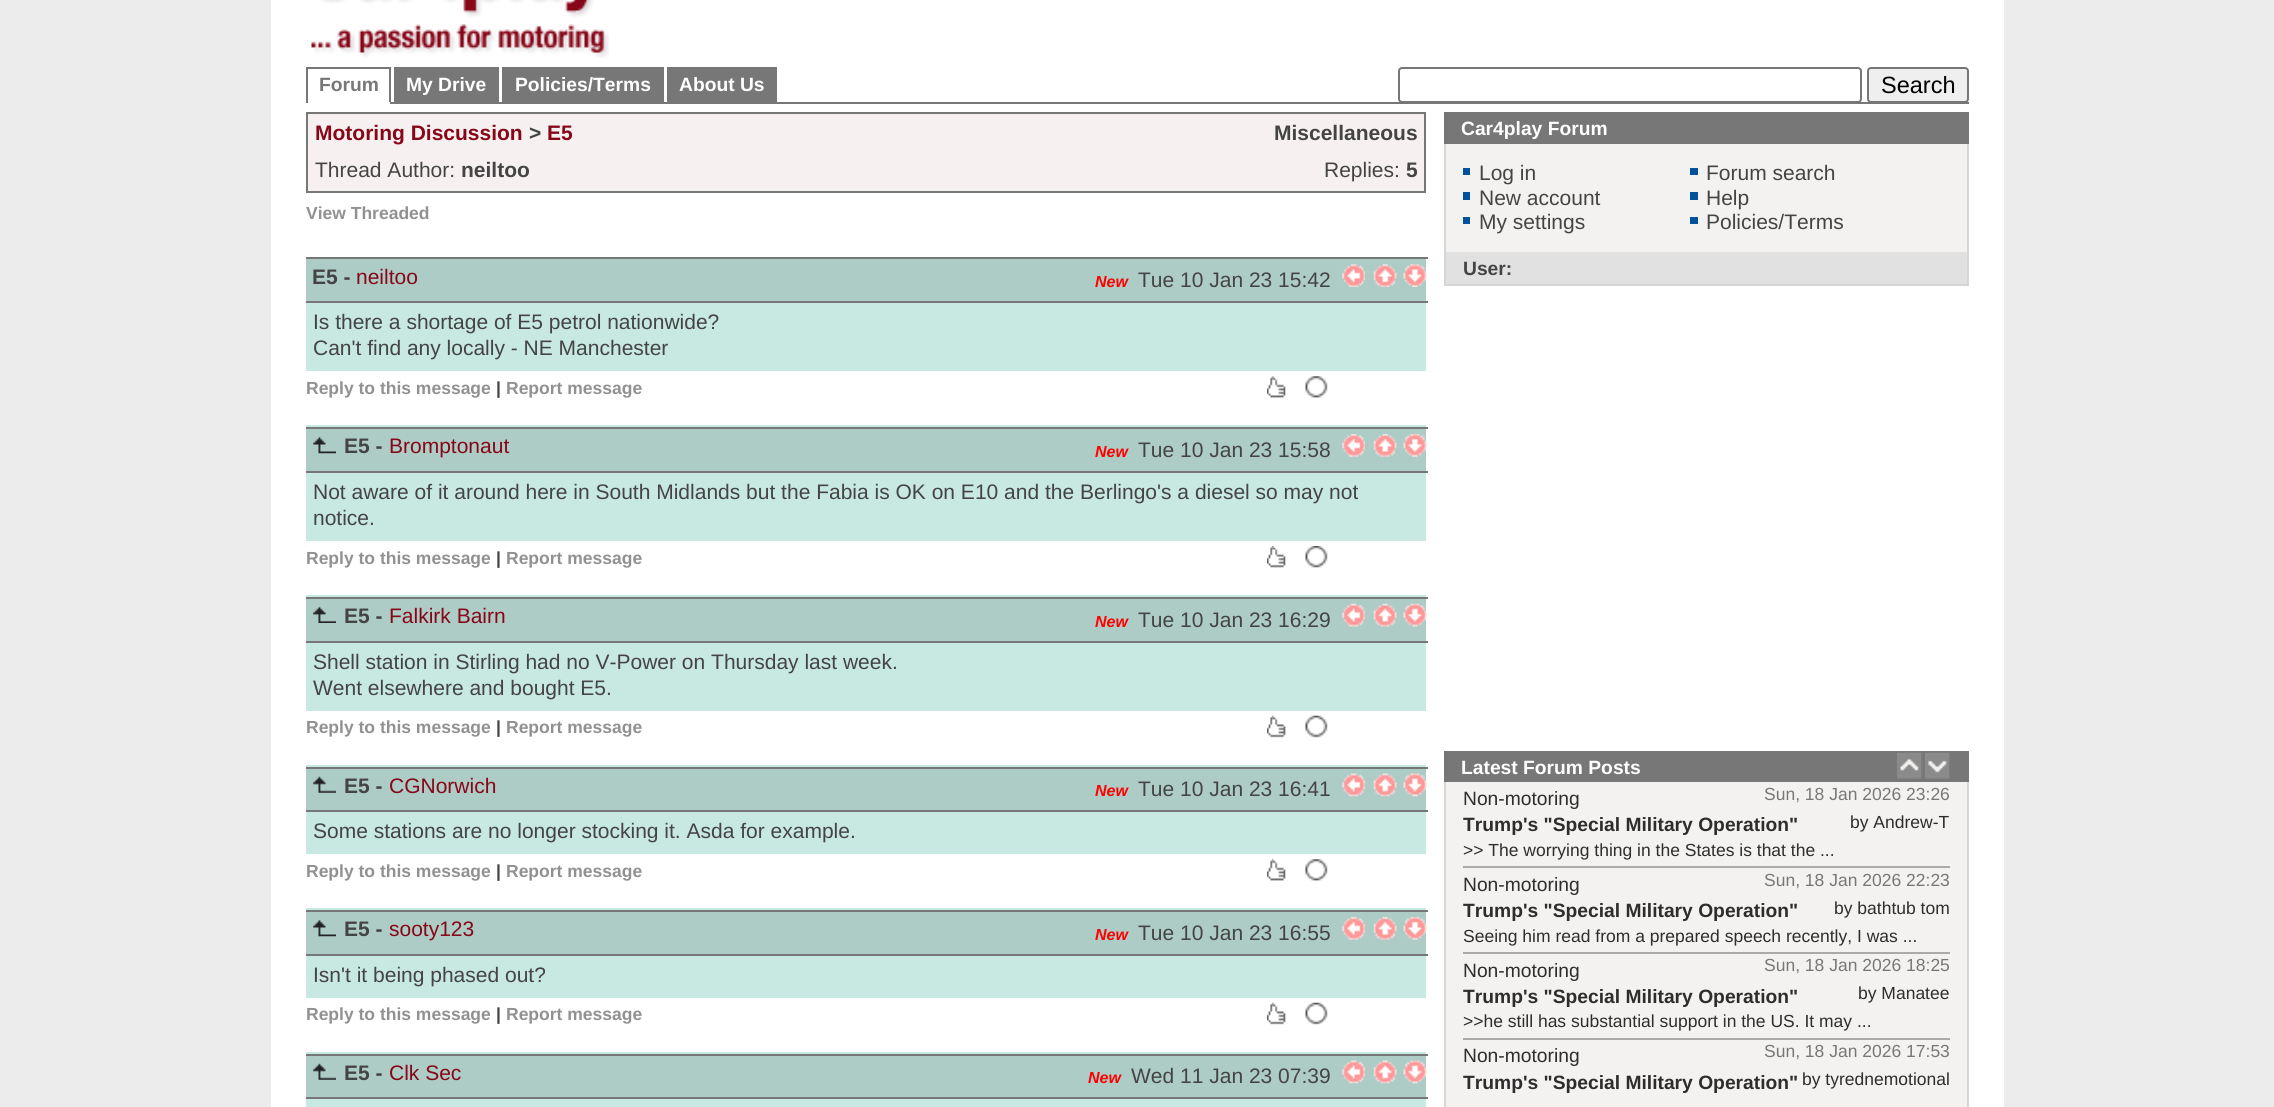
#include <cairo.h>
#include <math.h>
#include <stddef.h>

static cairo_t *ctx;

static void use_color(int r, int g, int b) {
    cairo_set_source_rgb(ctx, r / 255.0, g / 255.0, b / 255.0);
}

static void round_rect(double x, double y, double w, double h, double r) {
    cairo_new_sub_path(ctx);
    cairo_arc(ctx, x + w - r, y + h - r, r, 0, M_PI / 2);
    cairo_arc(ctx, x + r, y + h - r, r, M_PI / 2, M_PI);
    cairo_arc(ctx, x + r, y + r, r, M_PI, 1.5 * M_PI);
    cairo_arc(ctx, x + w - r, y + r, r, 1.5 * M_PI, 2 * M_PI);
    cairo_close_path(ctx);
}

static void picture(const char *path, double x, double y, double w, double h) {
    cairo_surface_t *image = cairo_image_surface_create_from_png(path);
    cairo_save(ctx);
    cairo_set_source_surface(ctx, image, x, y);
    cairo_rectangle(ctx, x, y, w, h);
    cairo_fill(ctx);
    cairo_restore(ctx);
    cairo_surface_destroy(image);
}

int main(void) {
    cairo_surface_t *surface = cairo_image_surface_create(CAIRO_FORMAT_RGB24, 2274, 1107);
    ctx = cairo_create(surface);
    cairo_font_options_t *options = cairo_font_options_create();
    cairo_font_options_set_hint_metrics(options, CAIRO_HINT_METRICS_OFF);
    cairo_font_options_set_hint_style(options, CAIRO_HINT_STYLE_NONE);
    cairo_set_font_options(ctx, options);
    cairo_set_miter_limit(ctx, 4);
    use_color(236, 236, 236);
    cairo_paint(ctx);
    use_color(255, 255, 255);
    cairo_rectangle(ctx, 271, 0, 1733, 1107);
    cairo_fill(ctx);
    picture("img1.png", 311, 0, 298, 58);
    use_color(119, 119, 119);
    cairo_rectangle(ctx, 390, 102, 1579, 2);
    cairo_fill(ctx);
    cairo_rectangle(ctx, 306, 67, 84, 2);
    cairo_fill(ctx);
    cairo_rectangle(ctx, 389, 67, 2, 36);
    cairo_fill(ctx);
    use_color(255, 255, 255);
    cairo_rectangle(ctx, 389, 102, 1, 1);
    cairo_fill(ctx);
    use_color(119, 119, 119);
    cairo_rectangle(ctx, 306, 67, 2, 36);
    cairo_fill(ctx);
    cairo_select_font_face(ctx, "Liberation Sans", CAIRO_FONT_SLANT_NORMAL, CAIRO_FONT_WEIGHT_BOLD);
    cairo_set_font_size(ctx, 19.25);
    cairo_move_to(ctx, 319, 91);
    cairo_show_text(ctx, "Forum");
    cairo_rectangle(ctx, 394, 67, 105, 35);
    cairo_fill(ctx);
    use_color(255, 255, 255);
    cairo_move_to(ctx, 406, 91);
    cairo_show_text(ctx, "My Drive");
    use_color(119, 119, 119);
    cairo_rectangle(ctx, 502, 67, 162, 35);
    cairo_fill(ctx);
    use_color(255, 255, 255);
    cairo_move_to(ctx, 515, 91);
    cairo_show_text(ctx, "Policies/Terms");
    use_color(119, 119, 119);
    cairo_rectangle(ctx, 667, 67, 110, 35);
    cairo_fill(ctx);
    use_color(255, 255, 255);
    cairo_move_to(ctx, 679, 91);
    cairo_show_text(ctx, "About Us");
    round_rect(1399, 68, 462, 34, 3);
    cairo_fill_preserve(ctx);
    use_color(118, 118, 118);
    cairo_stroke(ctx);
    use_color(239, 239, 239);
    round_rect(1868, 68, 100, 34, 3);
    cairo_fill_preserve(ctx);
    use_color(118, 118, 118);
    cairo_stroke(ctx);
    cairo_select_font_face(ctx, "Liberation Sans", CAIRO_FONT_SLANT_NORMAL, CAIRO_FONT_WEIGHT_NORMAL);
    cairo_set_font_size(ctx, 23.5);
    use_color(0, 0, 0);
    cairo_move_to(ctx, 1881, 93);
    cairo_show_text(ctx, "Search");
    use_color(247, 240, 241);
    cairo_rectangle(ctx, 307, 113, 1118, 79);
    cairo_fill_preserve(ctx);
    use_color(119, 119, 119);
    cairo_stroke(ctx);
    cairo_select_font_face(ctx, "Liberation Sans", CAIRO_FONT_SLANT_NORMAL, CAIRO_FONT_WEIGHT_BOLD);
    cairo_set_font_size(ctx, 21);
    use_color(135, 6, 24);
    cairo_move_to(ctx, 315, 140);
    cairo_show_text(ctx, "Motoring Discussion");
    use_color(68, 68, 68);
    cairo_move_to(ctx, 529, 140);
    cairo_show_text(ctx, ">");
    use_color(135, 6, 24);
    cairo_move_to(ctx, 547, 140);
    cairo_show_text(ctx, "E5");
    use_color(68, 68, 68);
    cairo_move_to(ctx, 1274, 140);
    cairo_show_text(ctx, "Miscellaneous");
    cairo_select_font_face(ctx, "Liberation Sans", CAIRO_FONT_SLANT_NORMAL, CAIRO_FONT_WEIGHT_NORMAL);
    cairo_move_to(ctx, 315, 177);
    cairo_show_text(ctx, "Thread Author:");
    cairo_select_font_face(ctx, "Liberation Sans", CAIRO_FONT_SLANT_NORMAL, CAIRO_FONT_WEIGHT_BOLD);
    cairo_move_to(ctx, 461, 177);
    cairo_show_text(ctx, "neiltoo");
    cairo_select_font_face(ctx, "Liberation Sans", CAIRO_FONT_SLANT_NORMAL, CAIRO_FONT_WEIGHT_NORMAL);
    cairo_move_to(ctx, 1324, 177);
    cairo_show_text(ctx, "Replies:");
    cairo_select_font_face(ctx, "Liberation Sans", CAIRO_FONT_SLANT_NORMAL, CAIRO_FONT_WEIGHT_BOLD);
    cairo_move_to(ctx, 1406, 177);
    cairo_show_text(ctx, "5");
    cairo_set_font_size(ctx, 17.5);
    use_color(145, 145, 145);
    cairo_move_to(ctx, 306, 219);
    cairo_show_text(ctx, "View Threaded");
    use_color(173, 204, 198);
    cairo_rectangle(ctx, 306, 259, 1120, 42);
    cairo_fill(ctx);
    use_color(119, 119, 119);
    cairo_rectangle(ctx, 306, 257, 1122, 2);
    cairo_fill(ctx);
    cairo_rectangle(ctx, 306, 301, 1122, 2);
    cairo_fill(ctx);
    cairo_set_font_size(ctx, 21);
    use_color(68, 68, 68);
    cairo_move_to(ctx, 312, 284);
    cairo_show_text(ctx, "E5 -");
    cairo_select_font_face(ctx, "Liberation Sans", CAIRO_FONT_SLANT_NORMAL, CAIRO_FONT_WEIGHT_NORMAL);
    use_color(135, 6, 24);
    cairo_move_to(ctx, 356, 284);
    cairo_show_text(ctx, "neiltoo");
    cairo_select_font_face(ctx, "Liberation Sans", CAIRO_FONT_SLANT_ITALIC, CAIRO_FONT_WEIGHT_BOLD);
    cairo_set_font_size(ctx, 16);
    use_color(255, 0, 0);
    cairo_move_to(ctx, 1095, 287);
    cairo_show_text(ctx, "New");
    cairo_select_font_face(ctx, "Liberation Sans", CAIRO_FONT_SLANT_NORMAL, CAIRO_FONT_WEIGHT_NORMAL);
    cairo_set_font_size(ctx, 21);
    use_color(68, 68, 68);
    cairo_move_to(ctx, 1138, 287);
    cairo_show_text(ctx, "Tue 10 Jan 23 15:42");
    picture("img2.png", 1342, 264, 23, 23);
    picture("img3.png", 1373, 264, 24, 23);
    picture("img4.png", 1403, 264, 24, 23);
    use_color(200, 232, 226);
    cairo_rectangle(ctx, 306, 303, 1120, 124);
    cairo_fill(ctx);
    use_color(68, 68, 68);
    cairo_move_to(ctx, 313, 329);
    cairo_show_text(ctx, "Is there a shortage of E5 petrol nationwide?");
    cairo_move_to(ctx, 313, 355);
    cairo_show_text(ctx, "Can't find any locally - NE Manchester");
    use_color(255, 255, 255);
    cairo_rectangle(ctx, 306, 371, 1120, 54);
    cairo_fill(ctx);
    cairo_select_font_face(ctx, "Liberation Sans", CAIRO_FONT_SLANT_NORMAL, CAIRO_FONT_WEIGHT_BOLD);
    cairo_set_font_size(ctx, 17.5);
    use_color(145, 145, 145);
    cairo_move_to(ctx, 306, 394);
    cairo_show_text(ctx, "Reply to this message");
    use_color(68, 68, 68);
    cairo_move_to(ctx, 496, 394);
    cairo_show_text(ctx, "|");
    use_color(145, 145, 145);
    cairo_move_to(ctx, 506, 394);
    cairo_show_text(ctx, "Report message");
    picture("img5.png", 1267, 376, 19, 22);
    picture("img6.png", 1305, 376, 23, 22);
    use_color(173, 204, 198);
    cairo_rectangle(ctx, 306, 429, 1120, 42);
    cairo_fill(ctx);
    use_color(119, 119, 119);
    cairo_rectangle(ctx, 306, 427, 1122, 2);
    cairo_fill(ctx);
    cairo_rectangle(ctx, 306, 471, 1122, 2);
    cairo_fill(ctx);
    picture("img7.png", 313, 437, 23, 17);
    cairo_set_font_size(ctx, 21);
    use_color(68, 68, 68);
    cairo_move_to(ctx, 344, 453);
    cairo_show_text(ctx, "E5 -");
    cairo_select_font_face(ctx, "Liberation Sans", CAIRO_FONT_SLANT_NORMAL, CAIRO_FONT_WEIGHT_NORMAL);
    use_color(135, 6, 24);
    cairo_move_to(ctx, 389, 453);
    cairo_show_text(ctx, "Bromptonaut");
    cairo_select_font_face(ctx, "Liberation Sans", CAIRO_FONT_SLANT_ITALIC, CAIRO_FONT_WEIGHT_BOLD);
    cairo_set_font_size(ctx, 16);
    use_color(255, 0, 0);
    cairo_move_to(ctx, 1095, 457);
    cairo_show_text(ctx, "New");
    cairo_select_font_face(ctx, "Liberation Sans", CAIRO_FONT_SLANT_NORMAL, CAIRO_FONT_WEIGHT_NORMAL);
    cairo_set_font_size(ctx, 21);
    use_color(68, 68, 68);
    cairo_move_to(ctx, 1138, 457);
    cairo_show_text(ctx, "Tue 10 Jan 23 15:58");
    picture("img8.png", 1342, 434, 23, 23);
    picture("img9.png", 1373, 434, 24, 23);
    picture("img10.png", 1403, 434, 24, 23);
    use_color(200, 232, 226);
    cairo_rectangle(ctx, 306, 473, 1120, 124);
    cairo_fill(ctx);
    use_color(68, 68, 68);
    cairo_move_to(ctx, 313, 499);
    cairo_show_text(ctx, "Not aware of it around here in South Midlands but the Fabia is OK on E10 and the Berlingo's a diesel so may not");
    cairo_move_to(ctx, 313, 525);
    cairo_show_text(ctx, "notice.");
    use_color(255, 255, 255);
    cairo_rectangle(ctx, 306, 541, 1120, 54);
    cairo_fill(ctx);
    cairo_select_font_face(ctx, "Liberation Sans", CAIRO_FONT_SLANT_NORMAL, CAIRO_FONT_WEIGHT_BOLD);
    cairo_set_font_size(ctx, 17.5);
    use_color(145, 145, 145);
    cairo_move_to(ctx, 306, 564);
    cairo_show_text(ctx, "Reply to this message");
    use_color(68, 68, 68);
    cairo_move_to(ctx, 496, 564);
    cairo_show_text(ctx, "|");
    use_color(145, 145, 145);
    cairo_move_to(ctx, 506, 564);
    cairo_show_text(ctx, "Report message");
    picture("img11.png", 1267, 546, 19, 22);
    picture("img12.png", 1305, 546, 23, 22);
    use_color(173, 204, 198);
    cairo_rectangle(ctx, 306, 599, 1120, 42);
    cairo_fill(ctx);
    use_color(119, 119, 119);
    cairo_rectangle(ctx, 306, 597, 1122, 2);
    cairo_fill(ctx);
    cairo_rectangle(ctx, 306, 641, 1122, 2);
    cairo_fill(ctx);
    picture("img13.png", 313, 606, 23, 17);
    cairo_set_font_size(ctx, 21);
    use_color(68, 68, 68);
    cairo_move_to(ctx, 344, 623);
    cairo_show_text(ctx, "E5 -");
    cairo_select_font_face(ctx, "Liberation Sans", CAIRO_FONT_SLANT_NORMAL, CAIRO_FONT_WEIGHT_NORMAL);
    use_color(135, 6, 24);
    cairo_move_to(ctx, 389, 623);
    cairo_show_text(ctx, "Falkirk Bairn");
    cairo_select_font_face(ctx, "Liberation Sans", CAIRO_FONT_SLANT_ITALIC, CAIRO_FONT_WEIGHT_BOLD);
    cairo_set_font_size(ctx, 16);
    use_color(255, 0, 0);
    cairo_move_to(ctx, 1095, 627);
    cairo_show_text(ctx, "New");
    cairo_select_font_face(ctx, "Liberation Sans", CAIRO_FONT_SLANT_NORMAL, CAIRO_FONT_WEIGHT_NORMAL);
    cairo_set_font_size(ctx, 21);
    use_color(68, 68, 68);
    cairo_move_to(ctx, 1138, 627);
    cairo_show_text(ctx, "Tue 10 Jan 23 16:29");
    picture("img14.png", 1342, 603, 23, 24);
    picture("img15.png", 1373, 603, 24, 24);
    picture("img16.png", 1403, 603, 24, 24);
    use_color(200, 232, 226);
    cairo_rectangle(ctx, 306, 643, 1120, 124);
    cairo_fill(ctx);
    use_color(68, 68, 68);
    cairo_move_to(ctx, 313, 669);
    cairo_show_text(ctx, "Shell station in Stirling had no V-Power on Thursday last week.");
    cairo_move_to(ctx, 313, 695);
    cairo_show_text(ctx, "Went elsewhere and bought E5.");
    use_color(255, 255, 255);
    cairo_rectangle(ctx, 306, 711, 1120, 54);
    cairo_fill(ctx);
    cairo_select_font_face(ctx, "Liberation Sans", CAIRO_FONT_SLANT_NORMAL, CAIRO_FONT_WEIGHT_BOLD);
    cairo_set_font_size(ctx, 17.5);
    use_color(145, 145, 145);
    cairo_move_to(ctx, 306, 733);
    cairo_show_text(ctx, "Reply to this message");
    use_color(68, 68, 68);
    cairo_move_to(ctx, 496, 733);
    cairo_show_text(ctx, "|");
    use_color(145, 145, 145);
    cairo_move_to(ctx, 506, 733);
    cairo_show_text(ctx, "Report message");
    picture("img17.png", 1267, 715, 19, 23);
    picture("img18.png", 1305, 715, 23, 23);
    use_color(173, 204, 198);
    cairo_rectangle(ctx, 306, 769, 1120, 41);
    cairo_fill(ctx);
    use_color(119, 119, 119);
    cairo_rectangle(ctx, 306, 767, 1122, 2);
    cairo_fill(ctx);
    cairo_rectangle(ctx, 306, 810, 1122, 2);
    cairo_fill(ctx);
    picture("img19.png", 313, 776, 23, 17);
    cairo_set_font_size(ctx, 21);
    use_color(68, 68, 68);
    cairo_move_to(ctx, 344, 793);
    cairo_show_text(ctx, "E5 -");
    cairo_select_font_face(ctx, "Liberation Sans", CAIRO_FONT_SLANT_NORMAL, CAIRO_FONT_WEIGHT_NORMAL);
    use_color(135, 6, 24);
    cairo_move_to(ctx, 389, 793);
    cairo_show_text(ctx, "CGNorwich");
    cairo_select_font_face(ctx, "Liberation Sans", CAIRO_FONT_SLANT_ITALIC, CAIRO_FONT_WEIGHT_BOLD);
    cairo_set_font_size(ctx, 16);
    use_color(255, 0, 0);
    cairo_move_to(ctx, 1095, 796);
    cairo_show_text(ctx, "New");
    cairo_select_font_face(ctx, "Liberation Sans", CAIRO_FONT_SLANT_NORMAL, CAIRO_FONT_WEIGHT_NORMAL);
    cairo_set_font_size(ctx, 21);
    use_color(68, 68, 68);
    cairo_move_to(ctx, 1138, 796);
    cairo_show_text(ctx, "Tue 10 Jan 23 16:41");
    picture("img20.png", 1342, 773, 23, 24);
    picture("img21.png", 1373, 773, 24, 24);
    picture("img22.png", 1403, 773, 24, 24);
    use_color(200, 232, 226);
    cairo_rectangle(ctx, 306, 812, 1120, 98);
    cairo_fill(ctx);
    use_color(68, 68, 68);
    cairo_move_to(ctx, 313, 838);
    cairo_show_text(ctx, "Some stations are no longer stocking it. Asda for example.");
    use_color(255, 255, 255);
    cairo_rectangle(ctx, 306, 854, 1120, 54);
    cairo_fill(ctx);
    cairo_select_font_face(ctx, "Liberation Sans", CAIRO_FONT_SLANT_NORMAL, CAIRO_FONT_WEIGHT_BOLD);
    cairo_set_font_size(ctx, 17.5);
    use_color(145, 145, 145);
    cairo_move_to(ctx, 306, 877);
    cairo_show_text(ctx, "Reply to this message");
    use_color(68, 68, 68);
    cairo_move_to(ctx, 496, 877);
    cairo_show_text(ctx, "|");
    use_color(145, 145, 145);
    cairo_move_to(ctx, 506, 877);
    cairo_show_text(ctx, "Report message");
    picture("img5.png", 1267, 859, 19, 22);
    picture("img6.png", 1305, 859, 23, 22);
    use_color(173, 204, 198);
    cairo_rectangle(ctx, 306, 912, 1120, 42);
    cairo_fill(ctx);
    use_color(119, 119, 119);
    cairo_rectangle(ctx, 306, 910, 1122, 2);
    cairo_fill(ctx);
    cairo_rectangle(ctx, 306, 954, 1122, 2);
    cairo_fill(ctx);
    picture("img7.png", 313, 920, 23, 17);
    cairo_set_font_size(ctx, 21);
    use_color(68, 68, 68);
    cairo_move_to(ctx, 344, 936);
    cairo_show_text(ctx, "E5 -");
    cairo_select_font_face(ctx, "Liberation Sans", CAIRO_FONT_SLANT_NORMAL, CAIRO_FONT_WEIGHT_NORMAL);
    use_color(135, 6, 24);
    cairo_move_to(ctx, 389, 936);
    cairo_show_text(ctx, "sooty123");
    cairo_select_font_face(ctx, "Liberation Sans", CAIRO_FONT_SLANT_ITALIC, CAIRO_FONT_WEIGHT_BOLD);
    cairo_set_font_size(ctx, 16);
    use_color(255, 0, 0);
    cairo_move_to(ctx, 1095, 940);
    cairo_show_text(ctx, "New");
    cairo_select_font_face(ctx, "Liberation Sans", CAIRO_FONT_SLANT_NORMAL, CAIRO_FONT_WEIGHT_NORMAL);
    cairo_set_font_size(ctx, 21);
    use_color(68, 68, 68);
    cairo_move_to(ctx, 1138, 940);
    cairo_show_text(ctx, "Tue 10 Jan 23 16:55");
    picture("img8.png", 1342, 917, 23, 23);
    picture("img9.png", 1373, 917, 24, 23);
    picture("img10.png", 1403, 917, 24, 23);
    use_color(200, 232, 226);
    cairo_rectangle(ctx, 306, 956, 1120, 98);
    cairo_fill(ctx);
    use_color(68, 68, 68);
    cairo_move_to(ctx, 313, 982);
    cairo_show_text(ctx, "Isn't it being phased out?");
    use_color(255, 255, 255);
    cairo_rectangle(ctx, 306, 998, 1120, 54);
    cairo_fill(ctx);
    cairo_select_font_face(ctx, "Liberation Sans", CAIRO_FONT_SLANT_NORMAL, CAIRO_FONT_WEIGHT_BOLD);
    cairo_set_font_size(ctx, 17.5);
    use_color(145, 145, 145);
    cairo_move_to(ctx, 306, 1020);
    cairo_show_text(ctx, "Reply to this message");
    use_color(68, 68, 68);
    cairo_move_to(ctx, 496, 1020);
    cairo_show_text(ctx, "|");
    use_color(145, 145, 145);
    cairo_move_to(ctx, 506, 1020);
    cairo_show_text(ctx, "Report message");
    picture("img17.png", 1267, 1002, 19, 23);
    picture("img18.png", 1305, 1002, 23, 23);
    use_color(173, 204, 198);
    cairo_rectangle(ctx, 306, 1056, 1120, 41);
    cairo_fill(ctx);
    use_color(119, 119, 119);
    cairo_rectangle(ctx, 306, 1054, 1122, 2);
    cairo_fill(ctx);
    cairo_rectangle(ctx, 306, 1097, 1122, 2);
    cairo_fill(ctx);
    picture("img19.png", 313, 1063, 23, 17);
    cairo_set_font_size(ctx, 21);
    use_color(68, 68, 68);
    cairo_move_to(ctx, 344, 1080);
    cairo_show_text(ctx, "E5 -");
    cairo_select_font_face(ctx, "Liberation Sans", CAIRO_FONT_SLANT_NORMAL, CAIRO_FONT_WEIGHT_NORMAL);
    use_color(135, 6, 24);
    cairo_move_to(ctx, 389, 1080);
    cairo_show_text(ctx, "Clk Sec");
    cairo_select_font_face(ctx, "Liberation Sans", CAIRO_FONT_SLANT_ITALIC, CAIRO_FONT_WEIGHT_BOLD);
    cairo_set_font_size(ctx, 16);
    use_color(255, 0, 0);
    cairo_move_to(ctx, 1088, 1083);
    cairo_show_text(ctx, "New");
    cairo_select_font_face(ctx, "Liberation Sans", CAIRO_FONT_SLANT_NORMAL, CAIRO_FONT_WEIGHT_NORMAL);
    cairo_set_font_size(ctx, 21);
    use_color(68, 68, 68);
    cairo_move_to(ctx, 1131, 1083);
    cairo_show_text(ctx, "Wed 11 Jan 23 07:39");
    picture("img20.png", 1342, 1060, 23, 24);
    picture("img21.png", 1373, 1060, 24, 24);
    picture("img22.png", 1403, 1060, 24, 24);
    use_color(200, 232, 226);
    cairo_rectangle(ctx, 306, 1099, 1120, 8);
    cairo_fill(ctx);
    use_color(119, 119, 119);
    cairo_rectangle(ctx, 1444, 112, 525, 32);
    cairo_fill(ctx);
    cairo_select_font_face(ctx, "Liberation Sans", CAIRO_FONT_SLANT_NORMAL, CAIRO_FONT_WEIGHT_BOLD);
    cairo_set_font_size(ctx, 19.25);
    use_color(255, 255, 255);
    cairo_move_to(ctx, 1461, 135);
    cairo_show_text(ctx, "Car4play Forum");
    use_color(244, 242, 241);
    cairo_rectangle(ctx, 1446, 144, 521, 108);
    cairo_fill(ctx);
    use_color(214, 214, 214);
    cairo_rectangle(ctx, 1967, 144, 2, 141);
    cairo_fill(ctx);
    cairo_rectangle(ctx, 1444, 284, 525, 2);
    cairo_fill(ctx);
    cairo_rectangle(ctx, 1444, 144, 2, 141);
    cairo_fill(ctx);
    use_color(0, 82, 155);
    cairo_rectangle(ctx, 1463, 168, 7, 7);
    cairo_fill(ctx);
    cairo_select_font_face(ctx, "Liberation Sans", CAIRO_FONT_SLANT_NORMAL, CAIRO_FONT_WEIGHT_NORMAL);
    cairo_set_font_size(ctx, 21);
    use_color(68, 68, 68);
    cairo_move_to(ctx, 1479, 180);
    cairo_show_text(ctx, "Log in");
    use_color(0, 82, 155);
    cairo_rectangle(ctx, 1463, 192, 7, 8);
    cairo_fill(ctx);
    use_color(68, 68, 68);
    cairo_move_to(ctx, 1479, 205);
    cairo_show_text(ctx, "New account");
    use_color(0, 82, 155);
    cairo_rectangle(ctx, 1463, 217, 7, 7);
    cairo_fill(ctx);
    use_color(68, 68, 68);
    cairo_move_to(ctx, 1479, 229);
    cairo_show_text(ctx, "My settings");
    use_color(0, 82, 155);
    cairo_rectangle(ctx, 1690, 168, 8, 7);
    cairo_fill(ctx);
    use_color(68, 68, 68);
    cairo_move_to(ctx, 1706, 180);
    cairo_show_text(ctx, "Forum search");
    use_color(0, 82, 155);
    cairo_rectangle(ctx, 1690, 192, 8, 8);
    cairo_fill(ctx);
    use_color(68, 68, 68);
    cairo_move_to(ctx, 1706, 205);
    cairo_show_text(ctx, "Help");
    use_color(0, 82, 155);
    cairo_rectangle(ctx, 1690, 217, 8, 7);
    cairo_fill(ctx);
    use_color(68, 68, 68);
    cairo_move_to(ctx, 1706, 229);
    cairo_show_text(ctx, "Policies/Terms");
    use_color(226, 225, 225);
    cairo_rectangle(ctx, 1446, 252, 521, 32);
    cairo_fill(ctx);
    cairo_select_font_face(ctx, "Liberation Sans", CAIRO_FONT_SLANT_NORMAL, CAIRO_FONT_WEIGHT_BOLD);
    cairo_set_font_size(ctx, 19.25);
    use_color(68, 68, 68);
    cairo_move_to(ctx, 1463, 275);
    cairo_show_text(ctx, "User:");
    use_color(119, 119, 119);
    cairo_rectangle(ctx, 1444, 751, 525, 31);
    cairo_fill(ctx);
    use_color(255, 255, 255);
    cairo_move_to(ctx, 1461, 774);
    cairo_show_text(ctx, "Latest Forum Posts");
    picture("img23.png", 1897, 752, 25, 27);
    picture("img24.png", 1925, 752, 25, 27);
    use_color(244, 242, 241);
    cairo_rectangle(ctx, 1446, 782, 521, 325);
    cairo_fill(ctx);
    use_color(214, 214, 214);
    cairo_rectangle(ctx, 1967, 782, 2, 325);
    cairo_fill(ctx);
    cairo_rectangle(ctx, 1444, 782, 2, 325);
    cairo_fill(ctx);
    cairo_select_font_face(ctx, "Liberation Sans", CAIRO_FONT_SLANT_NORMAL, CAIRO_FONT_WEIGHT_NORMAL);
    use_color(46, 45, 45);
    cairo_move_to(ctx, 1463, 805);
    cairo_show_text(ctx, "Non-motoring");
    cairo_set_font_size(ctx, 17.5);
    use_color(119, 119, 119);
    cairo_move_to(ctx, 1764, 800);
    cairo_show_text(ctx, "Sun, 18 Jan 2026 23:26");
    cairo_select_font_face(ctx, "Liberation Sans", CAIRO_FONT_SLANT_NORMAL, CAIRO_FONT_WEIGHT_BOLD);
    cairo_set_font_size(ctx, 19.25);
    use_color(46, 45, 45);
    cairo_move_to(ctx, 1463, 831);
    cairo_show_text(ctx, "Trump's \"Special Military Operation\"");
    cairo_select_font_face(ctx, "Liberation Sans", CAIRO_FONT_SLANT_NORMAL, CAIRO_FONT_WEIGHT_NORMAL);
    cairo_set_font_size(ctx, 17.5);
    cairo_move_to(ctx, 1850, 828);
    cairo_show_text(ctx, "by Andrew-T");
    cairo_move_to(ctx, 1463, 856);
    cairo_show_text(ctx, ">> The worrying thing in the States is that the ...");
    use_color(170, 170, 170);
    cairo_rectangle(ctx, 1463, 866, 487, 2);
    cairo_fill(ctx);
    cairo_set_font_size(ctx, 19.25);
    use_color(46, 45, 45);
    cairo_move_to(ctx, 1463, 891);
    cairo_show_text(ctx, "Non-motoring");
    cairo_set_font_size(ctx, 17.5);
    use_color(119, 119, 119);
    cairo_move_to(ctx, 1764, 886);
    cairo_show_text(ctx, "Sun, 18 Jan 2026 22:23");
    cairo_select_font_face(ctx, "Liberation Sans", CAIRO_FONT_SLANT_NORMAL, CAIRO_FONT_WEIGHT_BOLD);
    cairo_set_font_size(ctx, 19.25);
    use_color(46, 45, 45);
    cairo_move_to(ctx, 1463, 917);
    cairo_show_text(ctx, "Trump's \"Special Military Operation\"");
    cairo_select_font_face(ctx, "Liberation Sans", CAIRO_FONT_SLANT_NORMAL, CAIRO_FONT_WEIGHT_NORMAL);
    cairo_set_font_size(ctx, 17.5);
    cairo_move_to(ctx, 1834, 914);
    cairo_show_text(ctx, "by bathtub tom");
    cairo_move_to(ctx, 1463, 942);
    cairo_show_text(ctx, "Seeing him read from a prepared speech recently, I was ...");
    use_color(170, 170, 170);
    cairo_rectangle(ctx, 1463, 952, 487, 2);
    cairo_fill(ctx);
    cairo_set_font_size(ctx, 19.25);
    use_color(46, 45, 45);
    cairo_move_to(ctx, 1463, 977);
    cairo_show_text(ctx, "Non-motoring");
    cairo_set_font_size(ctx, 17.5);
    use_color(119, 119, 119);
    cairo_move_to(ctx, 1764, 971);
    cairo_show_text(ctx, "Sun, 18 Jan 2026 18:25");
    cairo_select_font_face(ctx, "Liberation Sans", CAIRO_FONT_SLANT_NORMAL, CAIRO_FONT_WEIGHT_BOLD);
    cairo_set_font_size(ctx, 19.25);
    use_color(46, 45, 45);
    cairo_move_to(ctx, 1463, 1003);
    cairo_show_text(ctx, "Trump's \"Special Military Operation\"");
    cairo_select_font_face(ctx, "Liberation Sans", CAIRO_FONT_SLANT_NORMAL, CAIRO_FONT_WEIGHT_NORMAL);
    cairo_set_font_size(ctx, 17.5);
    cairo_move_to(ctx, 1858, 999);
    cairo_show_text(ctx, "by Manatee");
    cairo_move_to(ctx, 1463, 1027);
    cairo_show_text(ctx, ">>he still has substantial support in the US. It may ...");
    use_color(170, 170, 170);
    cairo_rectangle(ctx, 1463, 1038, 487, 2);
    cairo_fill(ctx);
    cairo_set_font_size(ctx, 19.25);
    use_color(46, 45, 45);
    cairo_move_to(ctx, 1463, 1062);
    cairo_show_text(ctx, "Non-motoring");
    cairo_set_font_size(ctx, 17.5);
    use_color(119, 119, 119);
    cairo_move_to(ctx, 1764, 1057);
    cairo_show_text(ctx, "Sun, 18 Jan 2026 17:53");
    cairo_select_font_face(ctx, "Liberation Sans", CAIRO_FONT_SLANT_NORMAL, CAIRO_FONT_WEIGHT_BOLD);
    cairo_set_font_size(ctx, 19.25);
    use_color(46, 45, 45);
    cairo_move_to(ctx, 1463, 1089);
    cairo_show_text(ctx, "Trump's \"Special Military Operation\"");
    cairo_select_font_face(ctx, "Liberation Sans", CAIRO_FONT_SLANT_NORMAL, CAIRO_FONT_WEIGHT_NORMAL);
    cairo_set_font_size(ctx, 17.5);
    cairo_move_to(ctx, 1802, 1085);
    cairo_show_text(ctx, "by tyrednemotional");
    cairo_surface_write_to_png(surface, "result.png");
    cairo_font_options_destroy(options);
    cairo_destroy(ctx);
    cairo_surface_destroy(surface);
    return 0;
}
